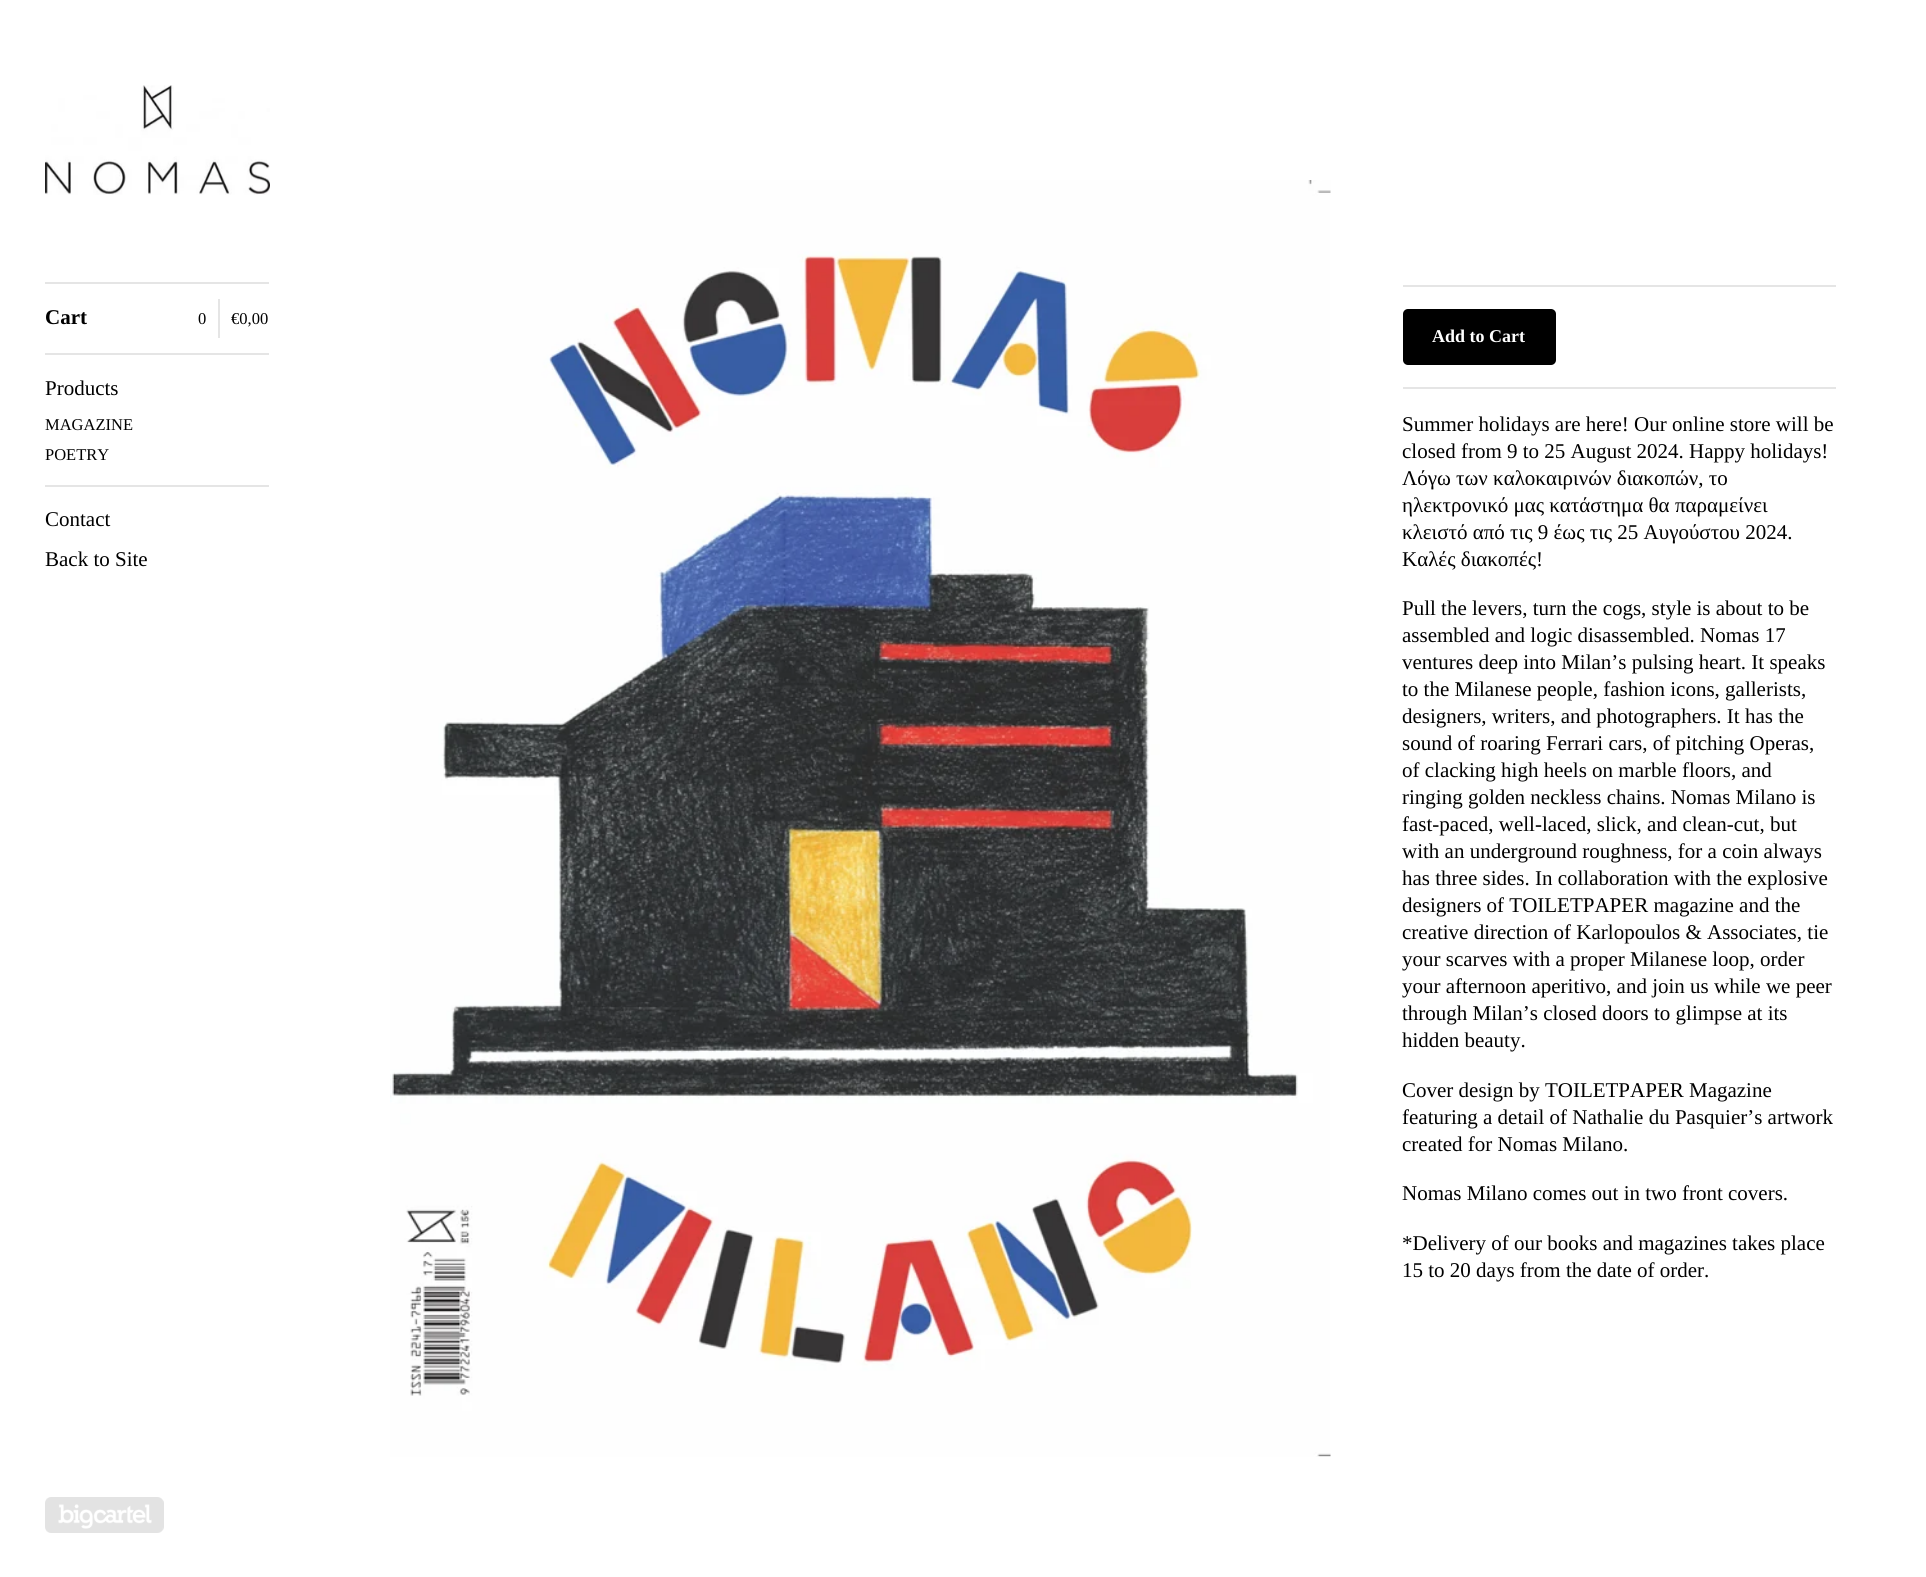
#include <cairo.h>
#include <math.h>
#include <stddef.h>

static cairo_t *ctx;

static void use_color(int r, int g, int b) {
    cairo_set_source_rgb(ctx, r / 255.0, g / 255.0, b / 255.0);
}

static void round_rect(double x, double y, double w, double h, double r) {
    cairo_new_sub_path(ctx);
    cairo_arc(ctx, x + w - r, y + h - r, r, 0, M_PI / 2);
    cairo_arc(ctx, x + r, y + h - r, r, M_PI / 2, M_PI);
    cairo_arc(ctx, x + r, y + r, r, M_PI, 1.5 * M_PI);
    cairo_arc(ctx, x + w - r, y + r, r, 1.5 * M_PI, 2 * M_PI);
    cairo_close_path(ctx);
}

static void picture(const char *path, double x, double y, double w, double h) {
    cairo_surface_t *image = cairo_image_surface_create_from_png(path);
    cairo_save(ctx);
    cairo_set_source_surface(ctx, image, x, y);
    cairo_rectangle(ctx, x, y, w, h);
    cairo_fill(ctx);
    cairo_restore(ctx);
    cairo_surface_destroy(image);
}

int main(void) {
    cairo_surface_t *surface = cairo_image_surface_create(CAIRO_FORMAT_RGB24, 1926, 1577);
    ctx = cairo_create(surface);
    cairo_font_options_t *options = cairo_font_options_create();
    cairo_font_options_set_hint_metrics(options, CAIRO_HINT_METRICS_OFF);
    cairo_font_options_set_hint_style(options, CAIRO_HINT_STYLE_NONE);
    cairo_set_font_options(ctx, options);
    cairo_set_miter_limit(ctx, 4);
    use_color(255, 255, 255);
    cairo_paint(ctx);
    picture("img1.png", 45, 85, 225, 110);
    use_color(229, 229, 229);
    cairo_rectangle(ctx, 45, 282, 224, 2);
    cairo_fill(ctx);
    cairo_select_font_face(ctx, "Liberation Serif", CAIRO_FONT_SLANT_NORMAL, CAIRO_FONT_WEIGHT_BOLD);
    cairo_set_font_size(ctx, 21);
    use_color(0, 0, 0);
    cairo_move_to(ctx, 45, 324);
    cairo_show_text(ctx, "Cart");
    cairo_select_font_face(ctx, "Liberation Serif", CAIRO_FONT_SLANT_NORMAL, CAIRO_FONT_WEIGHT_NORMAL);
    cairo_set_font_size(ctx, 16.5);
    cairo_move_to(ctx, 198, 324);
    cairo_show_text(ctx, "0");
    use_color(229, 229, 229);
    cairo_rectangle(ctx, 218, 299, 2, 39);
    cairo_fill(ctx);
    use_color(0, 0, 0);
    cairo_move_to(ctx, 231, 324);
    cairo_show_text(ctx, "€0,00");
    use_color(229, 229, 229);
    cairo_rectangle(ctx, 45, 353, 224, 2);
    cairo_fill(ctx);
    cairo_set_font_size(ctx, 21);
    use_color(0, 0, 0);
    cairo_move_to(ctx, 45, 395);
    cairo_show_text(ctx, "Products");
    cairo_set_font_size(ctx, 16.5);
    cairo_move_to(ctx, 45, 430);
    cairo_show_text(ctx, "MAGAZINE");
    cairo_move_to(ctx, 45, 460);
    cairo_show_text(ctx, "POETRY");
    use_color(229, 229, 229);
    cairo_rectangle(ctx, 45, 485, 224, 2);
    cairo_fill(ctx);
    cairo_set_font_size(ctx, 21);
    use_color(0, 0, 0);
    cairo_move_to(ctx, 45, 526);
    cairo_show_text(ctx, "Contact");
    cairo_move_to(ctx, 45, 566);
    cairo_show_text(ctx, "Back to Site");
    picture("img2.png", 45, 1497, 119, 36);
    picture("img3.png", 390, 180, 941, 1277);
    use_color(229, 229, 229);
    cairo_rectangle(ctx, 1403, 285, 433, 2);
    cairo_fill(ctx);
    use_color(0, 0, 0);
    round_rect(1403, 309, 153, 56, 5);
    cairo_fill(ctx);
    cairo_select_font_face(ctx, "Liberation Serif", CAIRO_FONT_SLANT_NORMAL, CAIRO_FONT_WEIGHT_BOLD);
    cairo_set_font_size(ctx, 18);
    use_color(255, 255, 255);
    cairo_move_to(ctx, 1432, 342);
    cairo_show_text(ctx, "Add to Cart");
    use_color(229, 229, 229);
    cairo_rectangle(ctx, 1403, 387, 433, 2);
    cairo_fill(ctx);
    cairo_select_font_face(ctx, "Liberation Serif", CAIRO_FONT_SLANT_NORMAL, CAIRO_FONT_WEIGHT_NORMAL);
    cairo_set_font_size(ctx, 21);
    use_color(0, 0, 0);
    cairo_move_to(ctx, 1402, 431);
    cairo_show_text(ctx, "Summer holidays are here! Our online store will be");
    cairo_move_to(ctx, 1402, 458);
    cairo_show_text(ctx, "closed from 9 to 25 August 2024. Happy holidays!");
    cairo_move_to(ctx, 1402, 485);
    cairo_show_text(ctx, "Λόγω των καλοκαιρινών διακοπών, το");
    cairo_move_to(ctx, 1402, 512);
    cairo_show_text(ctx, "ηλεκτρονικό μας κατάστημα θα παραμείνει");
    cairo_move_to(ctx, 1402, 539);
    cairo_show_text(ctx, "κλειστό από τις 9 έως τις 25 Αυγούστου 2024.");
    cairo_move_to(ctx, 1402, 566);
    cairo_show_text(ctx, "Καλές διακοπές!");
    cairo_move_to(ctx, 1402, 615);
    cairo_show_text(ctx, "Pull the levers, turn the cogs, style is about to be");
    cairo_move_to(ctx, 1402, 642);
    cairo_show_text(ctx, "assembled and logic disassembled. Nomas 17");
    cairo_move_to(ctx, 1402, 669);
    cairo_show_text(ctx, "ventures deep into Milan’s pulsing heart. It speaks");
    cairo_move_to(ctx, 1402, 696);
    cairo_show_text(ctx, "to the Milanese people, fashion icons, gallerists,");
    cairo_move_to(ctx, 1402, 723);
    cairo_show_text(ctx, "designers, writers, and photographers. It has the");
    cairo_move_to(ctx, 1402, 750);
    cairo_show_text(ctx, "sound of roaring Ferrari cars, of pitching Operas,");
    cairo_move_to(ctx, 1402, 777);
    cairo_show_text(ctx, "of clacking high heels on marble floors, and");
    cairo_move_to(ctx, 1402, 804);
    cairo_show_text(ctx, "ringing golden neckless chains. Nomas Milano is");
    cairo_move_to(ctx, 1402, 831);
    cairo_show_text(ctx, "fast-paced, well-laced, slick, and clean-cut, but");
    cairo_move_to(ctx, 1402, 858);
    cairo_show_text(ctx, "with an underground roughness, for a coin always");
    cairo_move_to(ctx, 1402, 885);
    cairo_show_text(ctx, "has three sides. In collaboration with the explosive");
    cairo_move_to(ctx, 1402, 912);
    cairo_show_text(ctx, "designers of TOILETPAPER magazine and the");
    cairo_move_to(ctx, 1402, 939);
    cairo_show_text(ctx, "creative direction of Karlopoulos & Associates, tie");
    cairo_move_to(ctx, 1402, 966);
    cairo_show_text(ctx, "your scarves with a proper Milanese loop, order");
    cairo_move_to(ctx, 1402, 993);
    cairo_show_text(ctx, "your afternoon aperitivo, and join us while we peer");
    cairo_move_to(ctx, 1402, 1020);
    cairo_show_text(ctx, "through Milan’s closed doors to glimpse at its");
    cairo_move_to(ctx, 1402, 1047);
    cairo_show_text(ctx, "hidden beauty.");
    cairo_move_to(ctx, 1402, 1097);
    cairo_show_text(ctx, "Cover design by TOILETPAPER Magazine");
    cairo_move_to(ctx, 1402, 1124);
    cairo_show_text(ctx, "featuring a detail of Nathalie du Pasquier’s artwork");
    cairo_move_to(ctx, 1402, 1151);
    cairo_show_text(ctx, "created for Nomas Milano.");
    cairo_move_to(ctx, 1402, 1200);
    cairo_show_text(ctx, "Nomas Milano comes out in two front covers.");
    cairo_move_to(ctx, 1402, 1250);
    cairo_show_text(ctx, "*Delivery of our books and magazines takes place");
    cairo_move_to(ctx, 1402, 1277);
    cairo_show_text(ctx, "15 to 20 days from the date of order.");
    cairo_surface_write_to_png(surface, "result.png");
    cairo_font_options_destroy(options);
    cairo_destroy(ctx);
    cairo_surface_destroy(surface);
    return 0;
}
